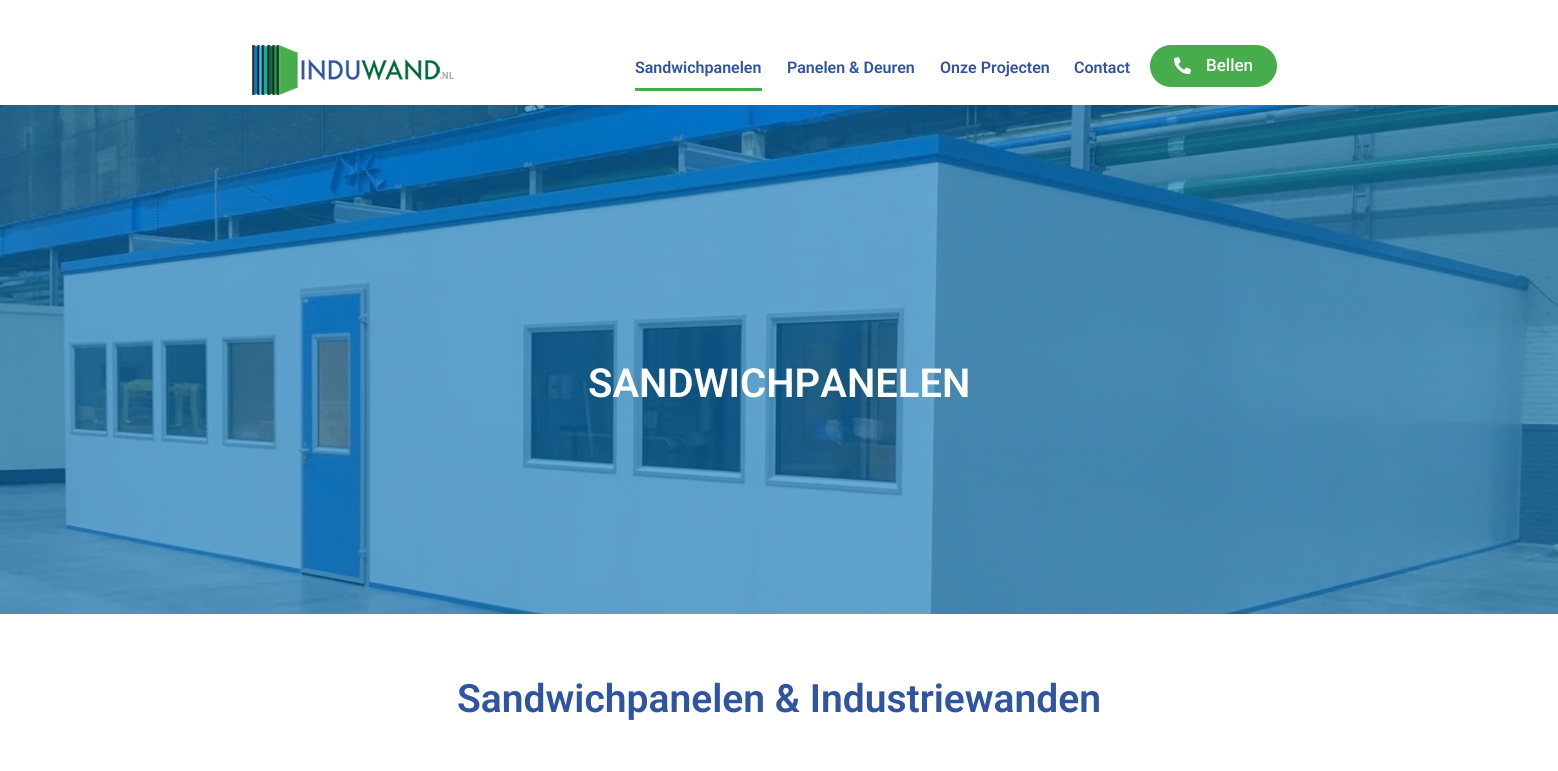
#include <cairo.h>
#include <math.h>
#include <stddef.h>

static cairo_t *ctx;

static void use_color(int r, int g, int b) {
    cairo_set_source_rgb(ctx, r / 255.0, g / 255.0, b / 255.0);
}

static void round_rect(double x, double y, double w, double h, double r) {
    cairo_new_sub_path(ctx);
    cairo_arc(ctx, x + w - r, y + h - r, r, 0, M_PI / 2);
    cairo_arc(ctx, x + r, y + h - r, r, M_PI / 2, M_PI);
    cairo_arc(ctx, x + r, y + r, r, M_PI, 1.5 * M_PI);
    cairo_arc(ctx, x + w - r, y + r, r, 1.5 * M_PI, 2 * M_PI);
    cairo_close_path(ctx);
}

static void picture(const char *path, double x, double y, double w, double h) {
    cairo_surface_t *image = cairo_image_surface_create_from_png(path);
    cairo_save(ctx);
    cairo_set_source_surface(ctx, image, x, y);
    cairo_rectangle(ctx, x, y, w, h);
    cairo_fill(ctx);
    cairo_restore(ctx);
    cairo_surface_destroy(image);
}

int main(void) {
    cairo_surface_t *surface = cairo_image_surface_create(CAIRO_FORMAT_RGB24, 1558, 771);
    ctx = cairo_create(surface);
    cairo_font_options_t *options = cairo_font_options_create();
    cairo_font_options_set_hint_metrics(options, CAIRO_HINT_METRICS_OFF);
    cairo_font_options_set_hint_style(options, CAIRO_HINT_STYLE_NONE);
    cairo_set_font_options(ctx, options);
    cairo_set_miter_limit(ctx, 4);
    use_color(255, 255, 255);
    cairo_paint(ctx);
    picture("img1.png", 252, 45, 202, 50);
    cairo_select_font_face(ctx, "Roboto SemiBold", CAIRO_FONT_SLANT_NORMAL, CAIRO_FONT_WEIGHT_NORMAL);
    cairo_set_font_size(ctx, 16);
    use_color(47, 84, 160);
    cairo_move_to(ctx, 635, 73);
    cairo_show_text(ctx, "Sandwichpanelen");
    use_color(71, 173, 76);
    cairo_rectangle(ctx, 635, 88, 127, 3);
    cairo_fill(ctx);
    use_color(47, 84, 160);
    cairo_move_to(ctx, 787, 73);
    cairo_show_text(ctx, "Panelen & Deuren");
    cairo_move_to(ctx, 940, 73);
    cairo_show_text(ctx, "Onze Projecten");
    cairo_move_to(ctx, 1074, 73);
    cairo_show_text(ctx, "Contact");
    use_color(71, 173, 76);
    round_rect(1150, 45, 127, 42, 21);
    cairo_fill(ctx);
    picture("img2.png", 1174, 57, 17, 18);
    cairo_select_font_face(ctx, "Roboto Medium", CAIRO_FONT_SLANT_NORMAL, CAIRO_FONT_WEIGHT_NORMAL);
    cairo_set_font_size(ctx, 17);
    use_color(255, 255, 255);
    cairo_move_to(ctx, 1206, 71);
    cairo_show_text(ctx, "Bellen");
    picture("img3.png", 0, 105, 1558, 509);
    cairo_select_font_face(ctx, "Roboto SemiBold", CAIRO_FONT_SLANT_NORMAL, CAIRO_FONT_WEIGHT_NORMAL);
    cairo_set_font_size(ctx, 40);
    cairo_move_to(ctx, 588, 397);
    cairo_show_text(ctx, "SANDWICHPANELEN");
    cairo_set_font_size(ctx, 39);
    use_color(47, 84, 160);
    cairo_move_to(ctx, 457, 712);
    cairo_show_text(ctx, "Sandwichpanelen & Industriewanden");
    cairo_surface_write_to_png(surface, "result.png");
    cairo_font_options_destroy(options);
    cairo_destroy(ctx);
    cairo_surface_destroy(surface);
    return 0;
}
